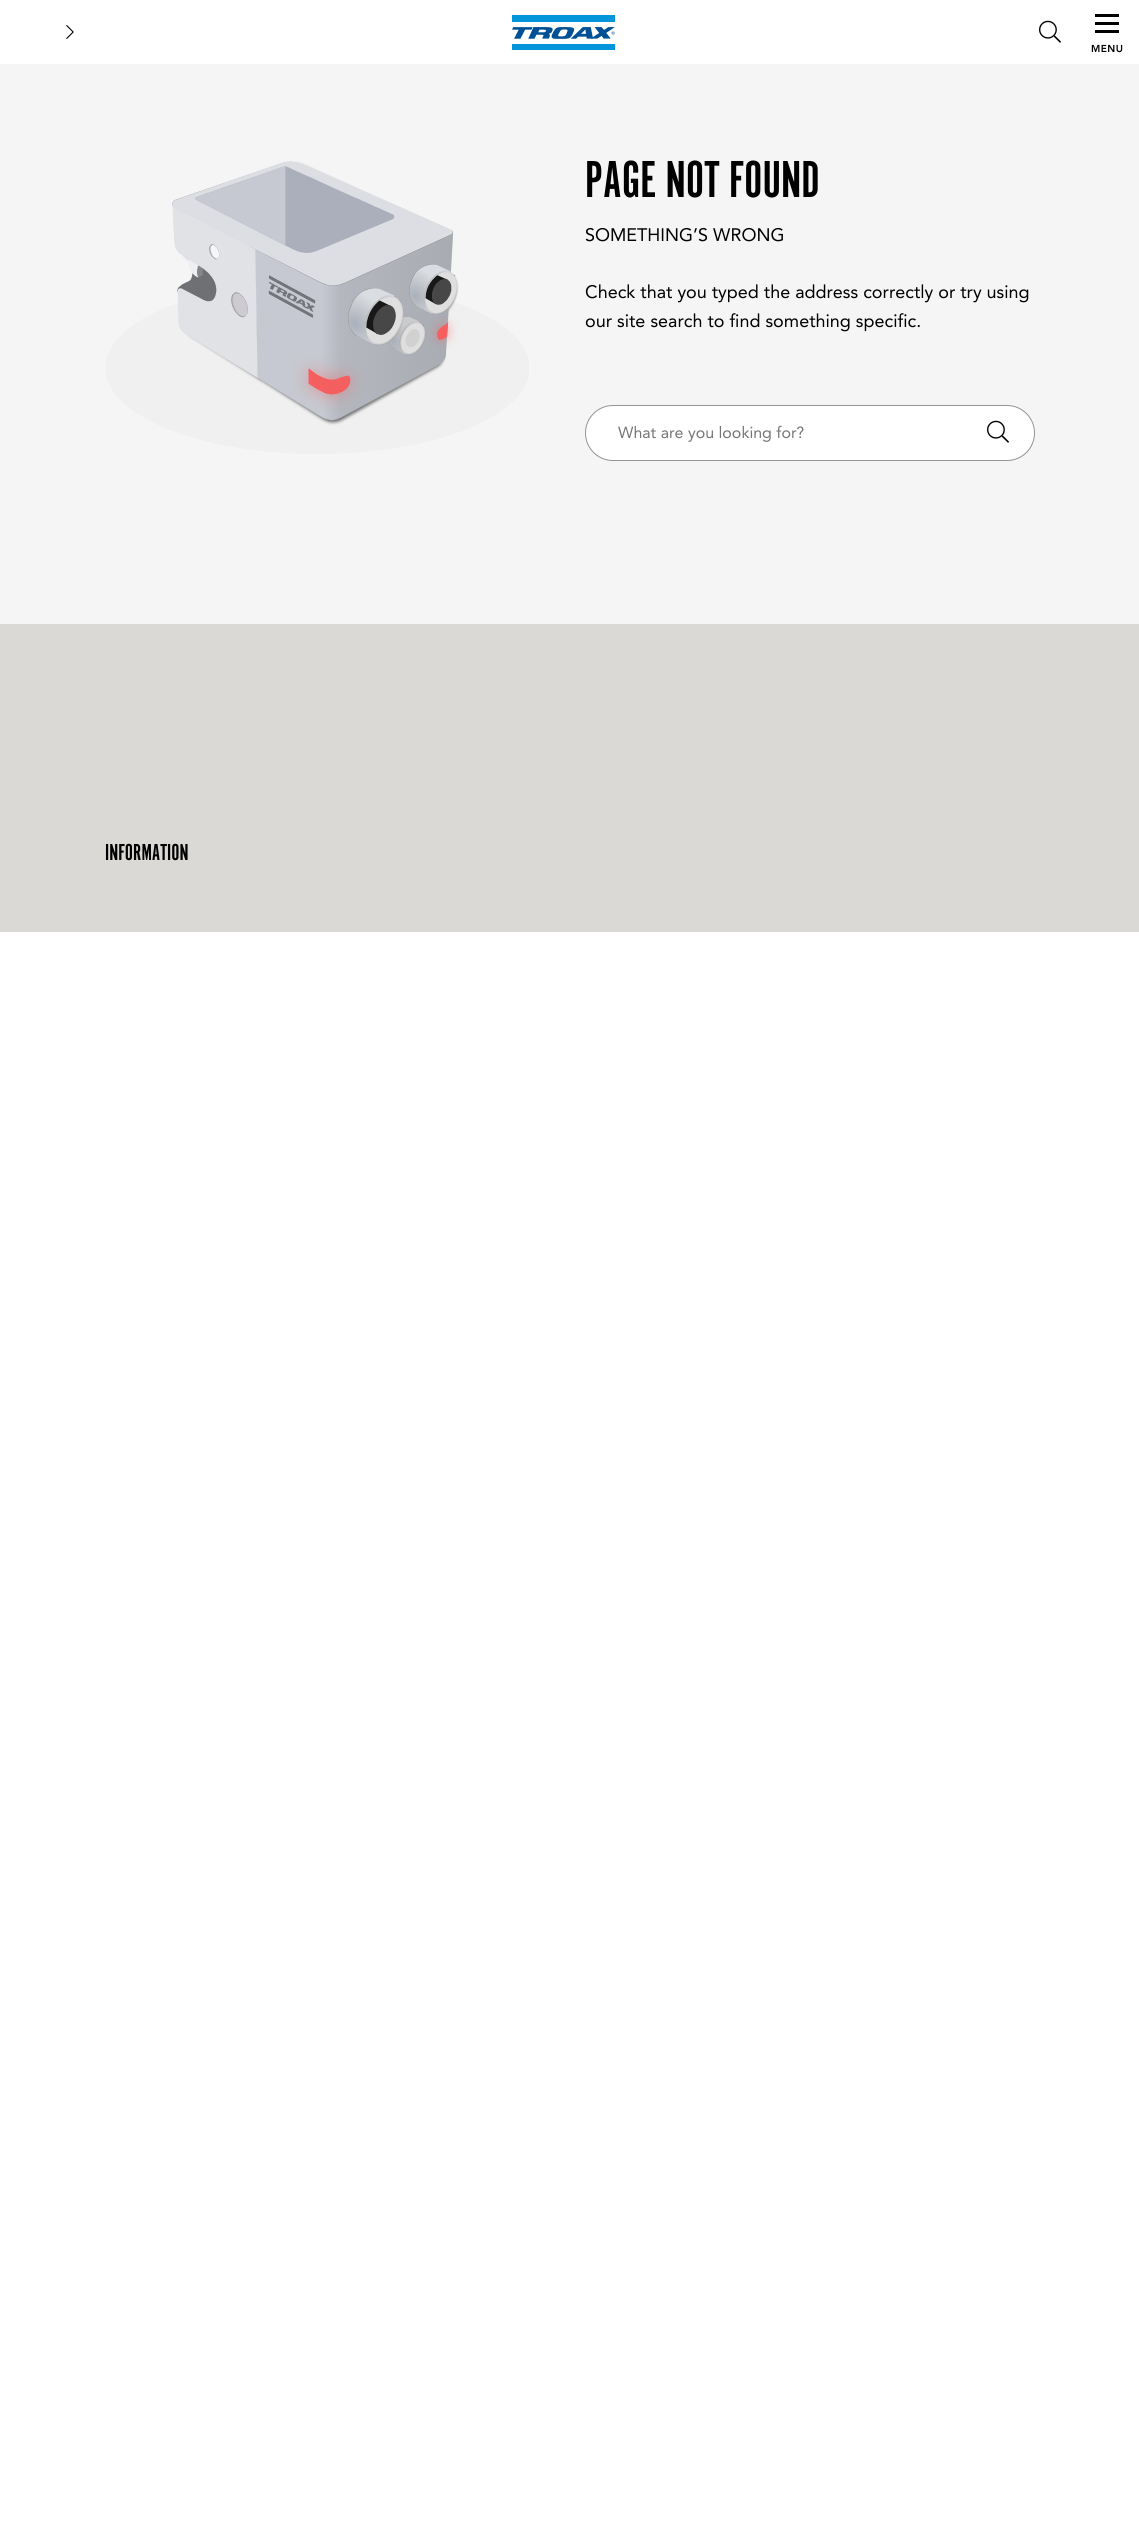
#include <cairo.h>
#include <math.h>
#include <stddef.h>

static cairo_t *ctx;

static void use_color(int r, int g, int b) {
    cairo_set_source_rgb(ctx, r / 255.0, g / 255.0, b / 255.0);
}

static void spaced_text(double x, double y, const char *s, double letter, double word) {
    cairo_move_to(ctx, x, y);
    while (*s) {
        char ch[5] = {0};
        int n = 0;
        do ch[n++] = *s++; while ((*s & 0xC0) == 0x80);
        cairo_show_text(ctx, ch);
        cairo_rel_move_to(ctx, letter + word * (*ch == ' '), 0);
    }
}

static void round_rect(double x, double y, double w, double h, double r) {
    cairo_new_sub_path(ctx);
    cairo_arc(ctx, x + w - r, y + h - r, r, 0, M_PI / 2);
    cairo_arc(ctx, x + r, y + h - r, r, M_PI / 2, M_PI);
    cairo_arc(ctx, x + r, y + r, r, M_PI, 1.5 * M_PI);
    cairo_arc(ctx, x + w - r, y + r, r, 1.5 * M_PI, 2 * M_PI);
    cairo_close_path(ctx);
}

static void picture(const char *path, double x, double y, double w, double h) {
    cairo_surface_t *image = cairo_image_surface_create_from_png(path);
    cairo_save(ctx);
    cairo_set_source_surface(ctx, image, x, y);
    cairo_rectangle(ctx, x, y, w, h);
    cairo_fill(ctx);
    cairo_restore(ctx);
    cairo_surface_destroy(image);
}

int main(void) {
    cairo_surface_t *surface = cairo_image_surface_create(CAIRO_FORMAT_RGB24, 1139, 2543);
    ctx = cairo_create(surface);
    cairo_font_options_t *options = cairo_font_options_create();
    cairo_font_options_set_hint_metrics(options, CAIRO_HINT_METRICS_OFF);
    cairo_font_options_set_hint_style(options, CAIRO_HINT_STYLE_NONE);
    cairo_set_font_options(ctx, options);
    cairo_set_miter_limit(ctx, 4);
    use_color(255, 255, 255);
    cairo_paint(ctx);
    picture("img1.png", 66, 25, 8, 14);
    picture("img2.png", 512, 15, 103, 35);
    picture("img3.png", 1039, 20, 22, 23);
    use_color(0, 0, 0);
    cairo_rectangle(ctx, 1095, 14, 24, 3);
    cairo_fill(ctx);
    cairo_rectangle(ctx, 1095, 22, 24, 3);
    cairo_fill(ctx);
    cairo_rectangle(ctx, 1095, 30, 24, 3);
    cairo_fill(ctx);
    cairo_select_font_face(ctx, "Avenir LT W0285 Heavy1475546 Black", CAIRO_FONT_SLANT_NORMAL, CAIRO_FONT_WEIGHT_NORMAL);
    cairo_set_font_size(ctx, 10);
    spaced_text(1091, 52, "MENU", 0.5, 0);
    use_color(245, 245, 245);
    cairo_rectangle(ctx, 0, 64, 1139, 560);
    cairo_fill(ctx);
    picture("img4.png", 105, 161, 424, 293);
    cairo_select_font_face(ctx, "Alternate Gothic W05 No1", CAIRO_FONT_SLANT_NORMAL, CAIRO_FONT_WEIGHT_NORMAL);
    cairo_set_font_size(ctx, 54);
    use_color(0, 0, 0);
    cairo_move_to(ctx, 585, 197);
    cairo_show_text(ctx, "PAGE NOT FOUND");
    cairo_select_font_face(ctx, "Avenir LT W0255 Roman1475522", CAIRO_FONT_SLANT_NORMAL, CAIRO_FONT_WEIGHT_NORMAL);
    cairo_set_font_size(ctx, 18);
    cairo_move_to(ctx, 585, 241);
    cairo_show_text(ctx, "SOMETHING’S WRONG");
    cairo_move_to(ctx, 585, 298);
    cairo_show_text(ctx, "Check that you typed the address correctly or try using");
    cairo_move_to(ctx, 585, 327);
    cairo_show_text(ctx, "our site search to find something specific.");
    use_color(255, 255, 255);
    round_rect(585.5, 405.5, 449, 55, 27.5);
    cairo_fill_preserve(ctx);
    use_color(148, 148, 148);
    cairo_set_line_width(ctx, 1);
    cairo_stroke(ctx);
    cairo_set_font_size(ctx, 16);
    use_color(117, 117, 117);
    cairo_move_to(ctx, 618, 438);
    cairo_show_text(ctx, "What are you looking for?");
    picture("img3.png", 987, 420, 22, 23);
    use_color(218, 217, 214);
    cairo_rectangle(ctx, 0, 624, 1139, 308);
    cairo_fill(ctx);
    cairo_select_font_face(ctx, "Alternate Gothic W05 No1", CAIRO_FONT_SLANT_NORMAL, CAIRO_FONT_WEIGHT_NORMAL);
    cairo_set_font_size(ctx, 24);
    use_color(0, 0, 0);
    cairo_move_to(ctx, 105, 860);
    cairo_show_text(ctx, "INFORMATION");
    cairo_surface_write_to_png(surface, "result.png");
    cairo_font_options_destroy(options);
    cairo_destroy(ctx);
    cairo_surface_destroy(surface);
    return 0;
}
